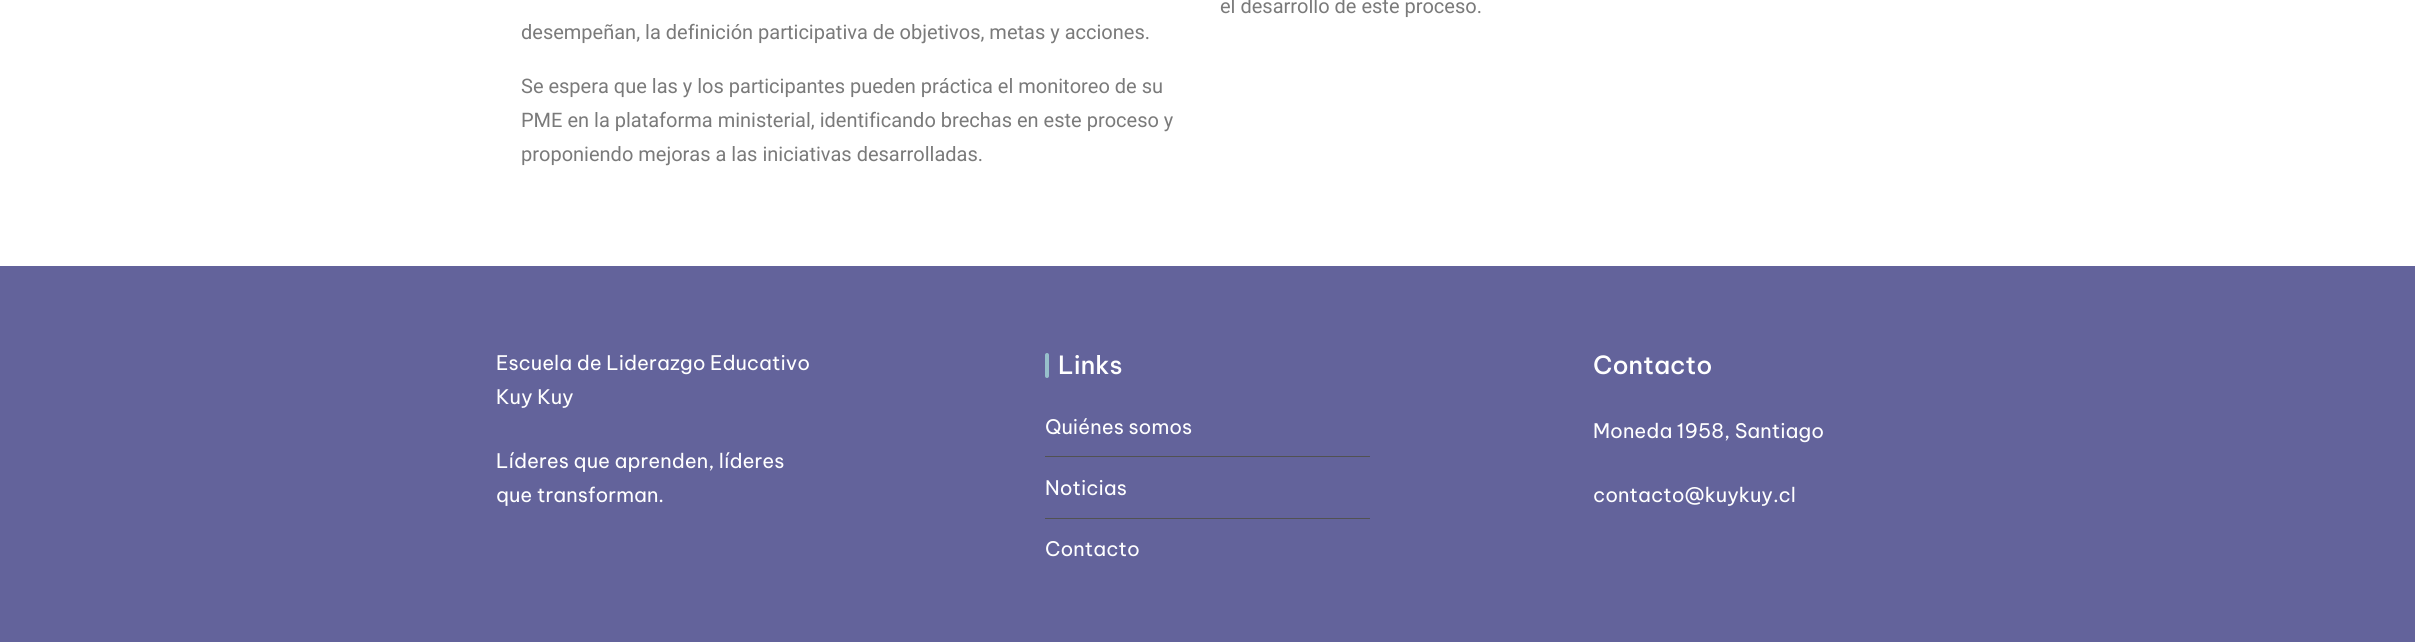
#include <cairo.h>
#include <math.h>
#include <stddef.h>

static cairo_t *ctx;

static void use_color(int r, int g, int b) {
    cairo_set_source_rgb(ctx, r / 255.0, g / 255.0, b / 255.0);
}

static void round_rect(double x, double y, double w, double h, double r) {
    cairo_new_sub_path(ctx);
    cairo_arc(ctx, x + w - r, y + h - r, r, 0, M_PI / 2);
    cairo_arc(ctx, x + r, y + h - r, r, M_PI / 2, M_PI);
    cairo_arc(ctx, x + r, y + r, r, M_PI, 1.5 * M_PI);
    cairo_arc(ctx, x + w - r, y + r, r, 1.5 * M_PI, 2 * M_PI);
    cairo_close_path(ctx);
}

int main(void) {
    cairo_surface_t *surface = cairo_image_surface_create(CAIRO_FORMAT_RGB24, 2415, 642);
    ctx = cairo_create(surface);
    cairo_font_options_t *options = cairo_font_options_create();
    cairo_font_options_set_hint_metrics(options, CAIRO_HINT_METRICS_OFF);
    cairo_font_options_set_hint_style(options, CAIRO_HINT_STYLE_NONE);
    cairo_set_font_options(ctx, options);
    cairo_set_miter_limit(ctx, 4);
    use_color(255, 255, 255);
    cairo_paint(ctx);
    cairo_select_font_face(ctx, "Roboto", CAIRO_FONT_SLANT_NORMAL, CAIRO_FONT_WEIGHT_NORMAL);
    cairo_set_font_size(ctx, 20);
    use_color(122, 122, 122);
    cairo_move_to(ctx, 1220, 13);
    cairo_show_text(ctx, "el desarrollo de este proceso.");
    cairo_move_to(ctx, 521, 39);
    cairo_show_text(ctx, "desempeñan, la definición participativa de objetivos, metas y acciones.");
    cairo_move_to(ctx, 521, 93);
    cairo_show_text(ctx, "Se espera que las y los participantes pueden práctica el monitoreo de su");
    cairo_move_to(ctx, 521, 127);
    cairo_show_text(ctx, "PME en la plataforma ministerial, identificando brechas en este proceso y");
    cairo_move_to(ctx, 521, 161);
    cairo_show_text(ctx, "proponiendo mejoras a las iniciativas desarrolladas.");
    use_color(99, 99, 155);
    cairo_rectangle(ctx, 0, 266, 2415, 376);
    cairo_fill(ctx);
    cairo_select_font_face(ctx, "Be Vietnam Pro", CAIRO_FONT_SLANT_NORMAL, CAIRO_FONT_WEIGHT_NORMAL);
    use_color(255, 255, 255);
    cairo_move_to(ctx, 496, 370);
    cairo_show_text(ctx, "Escuela de Liderazgo Educativo");
    cairo_move_to(ctx, 496, 404);
    cairo_show_text(ctx, "Kuy Kuy");
    cairo_move_to(ctx, 496, 468);
    cairo_show_text(ctx, "Líderes que aprenden, líderes");
    cairo_move_to(ctx, 496, 502);
    cairo_show_text(ctx, "que transforman.");
    use_color(151, 192, 203);
    round_rect(1045, 353, 4, 25, 2);
    cairo_fill(ctx);
    cairo_select_font_face(ctx, "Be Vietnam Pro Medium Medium", CAIRO_FONT_SLANT_NORMAL, CAIRO_FONT_WEIGHT_NORMAL);
    cairo_set_font_size(ctx, 25);
    use_color(255, 255, 255);
    cairo_move_to(ctx, 1058, 374);
    cairo_show_text(ctx, "Links");
    use_color(82, 82, 82);
    cairo_rectangle(ctx, 1045, 456, 325, 1);
    cairo_fill(ctx);
    cairo_select_font_face(ctx, "Be Vietnam Pro", CAIRO_FONT_SLANT_NORMAL, CAIRO_FONT_WEIGHT_NORMAL);
    cairo_set_font_size(ctx, 20);
    use_color(255, 255, 255);
    cairo_move_to(ctx, 1045, 434);
    cairo_show_text(ctx, "Quiénes somos");
    use_color(82, 82, 82);
    cairo_rectangle(ctx, 1045, 518, 325, 1);
    cairo_fill(ctx);
    use_color(255, 255, 255);
    cairo_move_to(ctx, 1045, 495);
    cairo_show_text(ctx, "Noticias");
    cairo_move_to(ctx, 1045, 556);
    cairo_show_text(ctx, "Contacto");
    cairo_select_font_face(ctx, "Be Vietnam Pro Medium Medium", CAIRO_FONT_SLANT_NORMAL, CAIRO_FONT_WEIGHT_NORMAL);
    cairo_set_font_size(ctx, 25);
    cairo_move_to(ctx, 1593, 374);
    cairo_show_text(ctx, "Contacto");
    cairo_select_font_face(ctx, "Be Vietnam Pro", CAIRO_FONT_SLANT_NORMAL, CAIRO_FONT_WEIGHT_NORMAL);
    cairo_set_font_size(ctx, 20);
    cairo_move_to(ctx, 1593, 438);
    cairo_show_text(ctx, "Moneda 1958, Santiago");
    cairo_move_to(ctx, 1593, 502);
    cairo_show_text(ctx, "contacto@kuykuy.cl");
    cairo_surface_write_to_png(surface, "result.png");
    cairo_font_options_destroy(options);
    cairo_destroy(ctx);
    cairo_surface_destroy(surface);
    return 0;
}
